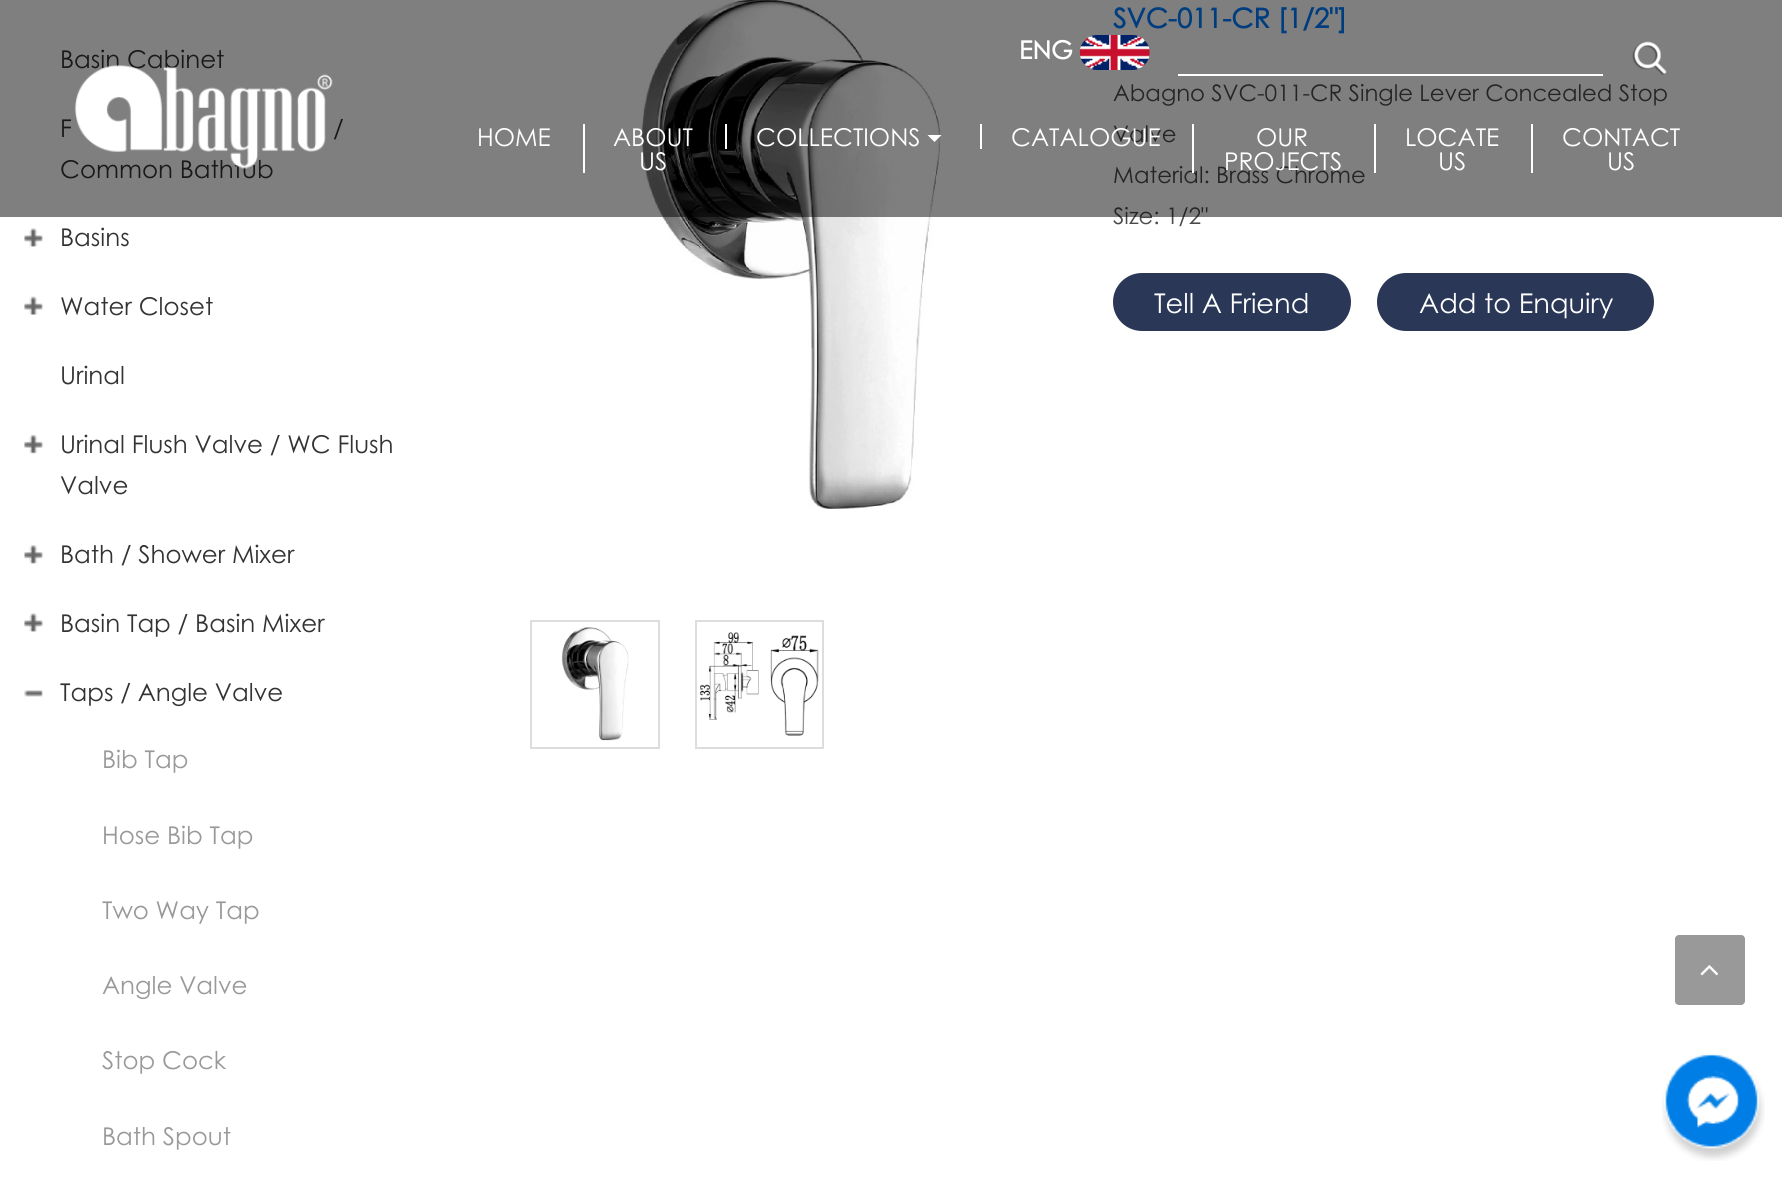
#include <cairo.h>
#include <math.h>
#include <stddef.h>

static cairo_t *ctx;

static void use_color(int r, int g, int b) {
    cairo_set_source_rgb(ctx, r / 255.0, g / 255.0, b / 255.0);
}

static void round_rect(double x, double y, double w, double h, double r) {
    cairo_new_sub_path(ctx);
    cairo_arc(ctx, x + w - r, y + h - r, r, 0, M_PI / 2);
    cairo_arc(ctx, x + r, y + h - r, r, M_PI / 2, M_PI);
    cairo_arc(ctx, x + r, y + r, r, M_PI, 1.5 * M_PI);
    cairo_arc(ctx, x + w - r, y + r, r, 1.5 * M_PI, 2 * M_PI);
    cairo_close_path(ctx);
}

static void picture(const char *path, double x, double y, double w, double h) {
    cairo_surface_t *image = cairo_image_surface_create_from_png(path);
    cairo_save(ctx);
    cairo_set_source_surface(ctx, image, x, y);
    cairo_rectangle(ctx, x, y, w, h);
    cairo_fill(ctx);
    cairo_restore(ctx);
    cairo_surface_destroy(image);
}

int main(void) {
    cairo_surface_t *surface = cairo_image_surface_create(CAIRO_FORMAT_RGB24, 1782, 1179);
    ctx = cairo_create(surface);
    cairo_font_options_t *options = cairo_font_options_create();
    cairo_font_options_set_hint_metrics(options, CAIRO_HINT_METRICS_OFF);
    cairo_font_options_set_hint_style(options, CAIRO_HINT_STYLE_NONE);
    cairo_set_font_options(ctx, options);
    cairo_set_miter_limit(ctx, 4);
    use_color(255, 255, 255);
    cairo_paint(ctx);
    cairo_select_font_face(ctx, "Century Gothic", CAIRO_FONT_SLANT_NORMAL, CAIRO_FONT_WEIGHT_NORMAL);
    cairo_set_font_size(ctx, 24.5);
    use_color(51, 51, 51);
    cairo_move_to(ctx, 60, 68);
    cairo_show_text(ctx, "Basin Cabinet");
    cairo_move_to(ctx, 60, 137);
    cairo_show_text(ctx, "F");
    cairo_move_to(ctx, 333, 137);
    cairo_show_text(ctx, "/");
    cairo_move_to(ctx, 60, 178);
    cairo_show_text(ctx, "Common Bathtub");
    picture("img1.png", 24, 228, 20, 19);
    cairo_move_to(ctx, 60, 246);
    cairo_show_text(ctx, "Basins");
    picture("img2.png", 24, 296, 20, 19);
    cairo_move_to(ctx, 60, 315);
    cairo_show_text(ctx, "Water Closet");
    cairo_move_to(ctx, 60, 384);
    cairo_show_text(ctx, "Urinal");
    picture("img3.png", 24, 434, 20, 20);
    cairo_move_to(ctx, 60, 453);
    cairo_show_text(ctx, "Urinal Flush Valve / WC Flush");
    cairo_move_to(ctx, 60, 494);
    cairo_show_text(ctx, "Valve");
    picture("img4.png", 24, 545, 20, 19);
    cairo_move_to(ctx, 60, 563);
    cairo_show_text(ctx, "Bath / Shower Mixer");
    picture("img1.png", 24, 613, 20, 19);
    cairo_move_to(ctx, 60, 632);
    cairo_show_text(ctx, "Basin Tap / Basin Mixer");
    picture("img5.png", 24, 690, 19, 7);
    cairo_move_to(ctx, 60, 701);
    cairo_show_text(ctx, "Taps / Angle Valve");
    use_color(153, 153, 153);
    cairo_move_to(ctx, 102, 768);
    cairo_show_text(ctx, "Bib Tap");
    cairo_move_to(ctx, 102, 844);
    cairo_show_text(ctx, "Hose Bib Tap");
    cairo_move_to(ctx, 102, 919);
    cairo_show_text(ctx, "Two Way Tap");
    cairo_move_to(ctx, 102, 994);
    cairo_show_text(ctx, "Angle Valve");
    cairo_move_to(ctx, 102, 1069);
    cairo_show_text(ctx, "Stop Cock");
    cairo_move_to(ctx, 102, 1145);
    cairo_show_text(ctx, "Bath Spout");
    picture("img6.png", 642, 0, 298, 509);
    cairo_rectangle(ctx, 531, 621, 128, 127);
    use_color(221, 221, 221);
    cairo_stroke(ctx);
    picture("img7.png", 561, 627, 68, 114);
    cairo_rectangle(ctx, 696, 621, 127, 127);
    cairo_stroke(ctx);
    picture("img8.png", 700, 632, 119, 104);
    cairo_select_font_face(ctx, "Century Gothic", CAIRO_FONT_SLANT_NORMAL, CAIRO_FONT_WEIGHT_BOLD);
    cairo_set_font_size(ctx, 27.25);
    use_color(0, 123, 255);
    cairo_move_to(ctx, 1113, 28);
    cairo_show_text(ctx, "SVC-011-CR [1/2\"]");
    cairo_select_font_face(ctx, "Century Gothic", CAIRO_FONT_SLANT_NORMAL, CAIRO_FONT_WEIGHT_NORMAL);
    cairo_set_font_size(ctx, 22.75);
    use_color(74, 74, 74);
    cairo_move_to(ctx, 1113, 101);
    cairo_show_text(ctx, "Abagno SVC-011-CR Single Lever Concealed Stop");
    cairo_move_to(ctx, 1113, 142);
    cairo_show_text(ctx, "Valve");
    cairo_move_to(ctx, 1113, 183);
    cairo_show_text(ctx, "Material: Brass Chrome");
    cairo_move_to(ctx, 1113, 224);
    cairo_show_text(ctx, "Size: 1/2\"");
    use_color(42, 55, 87);
    round_rect(1113, 273, 238, 58, 29);
    cairo_fill(ctx);
    cairo_set_font_size(ctx, 27.25);
    use_color(255, 255, 255);
    cairo_move_to(ctx, 1154, 313);
    cairo_show_text(ctx, "Tell A Friend");
    use_color(42, 55, 87);
    round_rect(1377, 273, 277, 58, 29);
    cairo_fill(ctx);
    use_color(255, 255, 255);
    cairo_move_to(ctx, 1419, 313);
    cairo_show_text(ctx, "Add to Enquiry");
    cairo_set_source_rgba(ctx, 0, 0, 0, 0.5);
    cairo_rectangle(ctx, 0, 0, 1782, 217);
    cairo_fill(ctx);
    picture("img9.png", 74, 65, 259, 104);
    cairo_select_font_face(ctx, "Century Gothic", CAIRO_FONT_SLANT_NORMAL, CAIRO_FONT_WEIGHT_BOLD);
    cairo_set_font_size(ctx, 25);
    use_color(255, 255, 255);
    cairo_move_to(ctx, 1019, 59);
    cairo_show_text(ctx, "ENG");
    picture("img10.png", 1079, 35, 71, 35);
    cairo_rectangle(ctx, 1178, 74, 425, 2);
    cairo_fill(ctx);
    picture("img11.png", 1632, 41, 35, 34);
    cairo_select_font_face(ctx, "Century Gothic", CAIRO_FONT_SLANT_NORMAL, CAIRO_FONT_WEIGHT_NORMAL);
    cairo_set_font_size(ctx, 24.5);
    cairo_move_to(ctx, 477, 146);
    cairo_show_text(ctx, "HOME");
    cairo_rectangle(ctx, 583, 124, 2, 49);
    cairo_fill(ctx);
    cairo_move_to(ctx, 613, 146);
    cairo_show_text(ctx, "ABOUT");
    cairo_move_to(ctx, 639, 170);
    cairo_show_text(ctx, "US");
    cairo_rectangle(ctx, 725, 124, 2, 25);
    cairo_fill(ctx);
    cairo_move_to(ctx, 756, 146);
    cairo_show_text(ctx, "COLLECTIONS");
    cairo_new_path(ctx);
    cairo_move_to(ctx, 927.5, 135);
    cairo_line_to(ctx, 941.5, 135);
    cairo_line_to(ctx, 934.5, 142);
    cairo_close_path(ctx);
    cairo_fill(ctx);
    cairo_rectangle(ctx, 980, 124, 2, 25);
    cairo_fill(ctx);
    cairo_move_to(ctx, 1011, 146);
    cairo_show_text(ctx, "CATALOGUE");
    cairo_rectangle(ctx, 1192, 124, 2, 49);
    cairo_fill(ctx);
    cairo_move_to(ctx, 1256, 146);
    cairo_show_text(ctx, "OUR");
    cairo_move_to(ctx, 1224, 170);
    cairo_show_text(ctx, "PROJECTS");
    cairo_rectangle(ctx, 1374, 124, 2, 49);
    cairo_fill(ctx);
    cairo_move_to(ctx, 1405, 146);
    cairo_show_text(ctx, "LOCATE");
    cairo_move_to(ctx, 1438, 170);
    cairo_show_text(ctx, "US");
    cairo_rectangle(ctx, 1531, 124, 2, 49);
    cairo_fill(ctx);
    cairo_move_to(ctx, 1562, 146);
    cairo_show_text(ctx, "CONTACT");
    cairo_move_to(ctx, 1607, 170);
    cairo_show_text(ctx, "US");
    use_color(153, 153, 153);
    round_rect(1675, 935, 70, 70, 4);
    cairo_fill(ctx);
    picture("img12.png", 1700, 965, 19, 11);
    picture("img13.png", 1662, 1054, 103, 107);
    cairo_surface_write_to_png(surface, "result.png");
    cairo_font_options_destroy(options);
    cairo_destroy(ctx);
    cairo_surface_destroy(surface);
    return 0;
}
